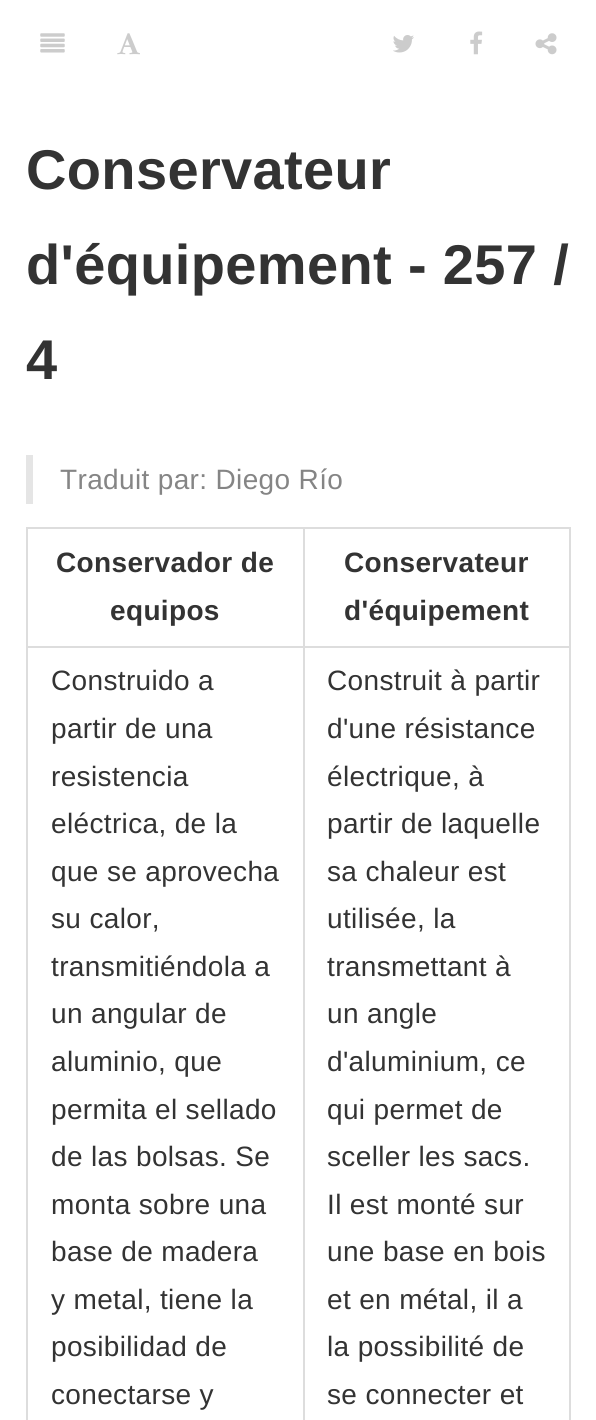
#include <cairo.h>
#include <math.h>
#include <stddef.h>

static cairo_t *ctx;

static void use_color(int r, int g, int b) {
    cairo_set_source_rgb(ctx, r / 255.0, g / 255.0, b / 255.0);
}

static void spaced_text(double x, double y, const char *s, double letter, double word) {
    cairo_move_to(ctx, x, y);
    while (*s) {
        char ch[5] = {0};
        int n = 0;
        do ch[n++] = *s++; while ((*s & 0xC0) == 0x80);
        cairo_show_text(ctx, ch);
        cairo_rel_move_to(ctx, letter + word * (*ch == ' '), 0);
    }
}

static void picture(const char *path, double x, double y, double w, double h) {
    cairo_surface_t *image = cairo_image_surface_create_from_png(path);
    cairo_save(ctx);
    cairo_set_source_surface(ctx, image, x, y);
    cairo_rectangle(ctx, x, y, w, h);
    cairo_fill(ctx);
    cairo_restore(ctx);
    cairo_surface_destroy(image);
}

int main(void) {
    cairo_surface_t *surface = cairo_image_surface_create(CAIRO_FORMAT_RGB24, 596, 1420);
    ctx = cairo_create(surface);
    cairo_font_options_t *options = cairo_font_options_create();
    cairo_font_options_set_hint_metrics(options, CAIRO_HINT_METRICS_OFF);
    cairo_font_options_set_hint_style(options, CAIRO_HINT_STYLE_NONE);
    cairo_set_font_options(ctx, options);
    cairo_set_miter_limit(ctx, 4);
    use_color(255, 255, 255);
    cairo_paint(ctx);
    picture("img1.png", 40, 33, 25, 20);
    picture("img2.png", 117, 33, 23, 22);
    picture("img3.png", 393, 35, 21, 18);
    picture("img4.png", 470, 31, 13, 24);
    picture("img5.png", 535, 33, 22, 22);
    cairo_select_font_face(ctx, "Liberation Sans", CAIRO_FONT_SLANT_NORMAL, CAIRO_FONT_WEIGHT_BOLD);
    cairo_set_font_size(ctx, 56);
    use_color(51, 51, 51);
    spaced_text(26, 189, "Conservateur", 0.35, 0);
    spaced_text(26, 284, "d'équipement - 257 /", 0.35, 0);
    spaced_text(26, 379, "4", 0.35, 0);
    use_color(229, 229, 229);
    cairo_rectangle(ctx, 26, 455, 7, 49);
    cairo_fill(ctx);
    cairo_select_font_face(ctx, "Liberation Sans", CAIRO_FONT_SLANT_NORMAL, CAIRO_FONT_WEIGHT_NORMAL);
    cairo_set_font_size(ctx, 28);
    use_color(133, 133, 133);
    spaced_text(60, 489, "Traduit par: Diego Río", 0.35, 0);
    use_color(221, 221, 221);
    cairo_rectangle(ctx, 303, 527, 268, 2);
    cairo_fill(ctx);
    cairo_rectangle(ctx, 303, 646, 268, 2);
    cairo_fill(ctx);
    cairo_rectangle(ctx, 303, 646, 2, 774);
    cairo_fill(ctx);
    cairo_rectangle(ctx, 26, 646, 279, 2);
    cairo_fill(ctx);
    cairo_rectangle(ctx, 303, 527, 2, 121);
    cairo_fill(ctx);
    cairo_rectangle(ctx, 26, 527, 279, 2);
    cairo_fill(ctx);
    cairo_rectangle(ctx, 26, 646, 2, 774);
    cairo_fill(ctx);
    cairo_rectangle(ctx, 26, 527, 2, 121);
    cairo_fill(ctx);
    cairo_select_font_face(ctx, "Liberation Sans", CAIRO_FONT_SLANT_NORMAL, CAIRO_FONT_WEIGHT_BOLD);
    use_color(51, 51, 51);
    spaced_text(56, 572, "Conservador de", 0.35, 0);
    spaced_text(110, 620, "equipos", 0.35, 0);
    use_color(221, 221, 221);
    cairo_rectangle(ctx, 569, 646, 2, 774);
    cairo_fill(ctx);
    cairo_rectangle(ctx, 569, 527, 2, 121);
    cairo_fill(ctx);
    use_color(51, 51, 51);
    spaced_text(344, 572, "Conservateur", 0.35, 0);
    spaced_text(344, 620, "d'équipement", 0.35, 0);
    cairo_select_font_face(ctx, "Liberation Sans", CAIRO_FONT_SLANT_NORMAL, CAIRO_FONT_WEIGHT_NORMAL);
    spaced_text(51, 690, "Construido a", 0.35, 0);
    spaced_text(51, 738, "partir de una", 0.35, 0);
    spaced_text(51, 786, "resistencia", 0.35, 0);
    spaced_text(51, 833, "eléctrica, de la", 0.35, 0);
    spaced_text(51, 881, "que se aprovecha", 0.35, 0);
    spaced_text(51, 928, "su calor,", 0.35, 0);
    spaced_text(51, 976, "transmitiéndola a", 0.35, 0);
    spaced_text(51, 1023, "un angular de", 0.35, 0);
    spaced_text(51, 1071, "aluminio, que", 0.35, 0);
    spaced_text(51, 1119, "permita el sellado", 0.35, 0);
    spaced_text(51, 1166, "de las bolsas. Se", 0.35, 0);
    spaced_text(51, 1214, "monta sobre una", 0.35, 0);
    spaced_text(51, 1261, "base de madera", 0.35, 0);
    spaced_text(51, 1309, "y metal, tiene la", 0.35, 0);
    spaced_text(51, 1356, "posibilidad de", 0.35, 0);
    spaced_text(51, 1404, "conectarse y", 0.35, 0);
    spaced_text(327, 690, "Construit à partir", 0.35, 0);
    spaced_text(327, 738, "d'une résistance", 0.35, 0);
    spaced_text(327, 786, "électrique, à", 0.35, 0);
    spaced_text(327, 833, "partir de laquelle", 0.35, 0);
    spaced_text(327, 881, "sa chaleur est", 0.35, 0);
    spaced_text(327, 928, "utilisée, la", 0.35, 0);
    spaced_text(327, 976, "transmettant à", 0.35, 0);
    spaced_text(327, 1023, "un angle", 0.35, 0);
    spaced_text(327, 1071, "d'aluminium, ce", 0.35, 0);
    spaced_text(327, 1119, "qui permet de", 0.35, 0);
    spaced_text(327, 1166, "sceller les sacs.", 0.35, 0);
    spaced_text(327, 1214, "Il est monté sur", 0.35, 0);
    spaced_text(327, 1261, "une base en bois", 0.35, 0);
    spaced_text(327, 1309, "et en métal, il a", 0.35, 0);
    spaced_text(327, 1356, "la possibilité de", 0.35, 0);
    spaced_text(327, 1404, "se connecter et", 0.35, 0);
    cairo_surface_write_to_png(surface, "result.png");
    cairo_font_options_destroy(options);
    cairo_destroy(ctx);
    cairo_surface_destroy(surface);
    return 0;
}
